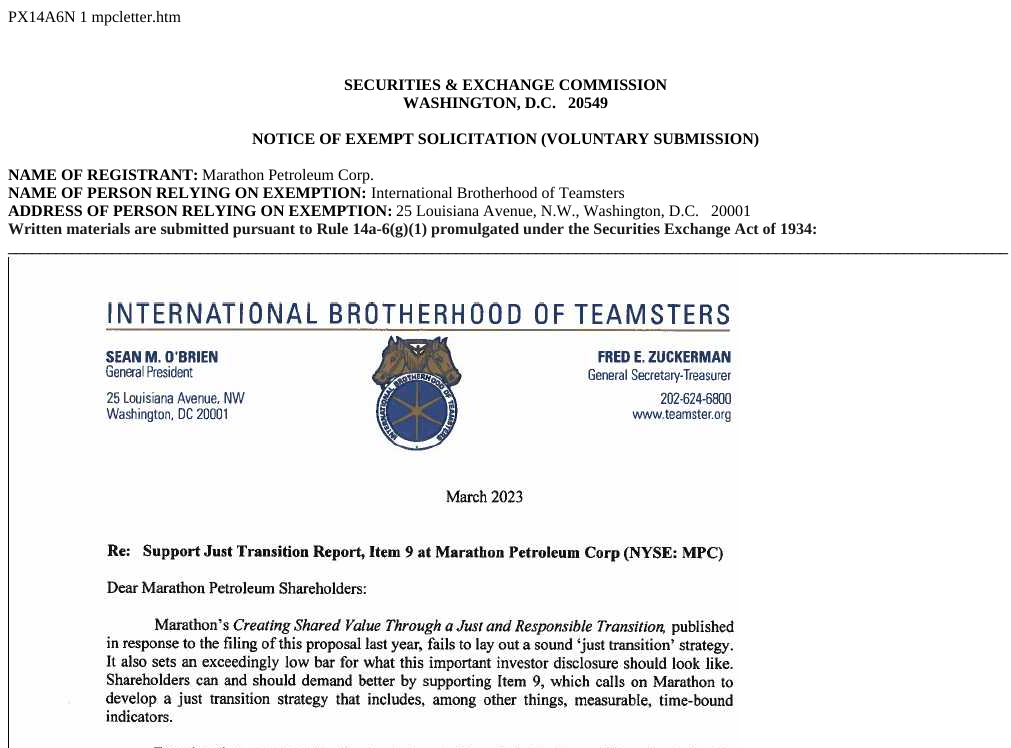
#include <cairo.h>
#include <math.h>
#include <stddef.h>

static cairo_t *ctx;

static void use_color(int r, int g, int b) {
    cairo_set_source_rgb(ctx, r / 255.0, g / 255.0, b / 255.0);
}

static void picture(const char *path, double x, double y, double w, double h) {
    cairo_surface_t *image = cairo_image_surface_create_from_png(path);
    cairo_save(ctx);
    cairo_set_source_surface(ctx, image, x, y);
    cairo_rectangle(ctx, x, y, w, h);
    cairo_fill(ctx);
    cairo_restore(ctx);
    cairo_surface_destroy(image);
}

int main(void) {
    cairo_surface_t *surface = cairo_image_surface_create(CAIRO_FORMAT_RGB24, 1011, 748);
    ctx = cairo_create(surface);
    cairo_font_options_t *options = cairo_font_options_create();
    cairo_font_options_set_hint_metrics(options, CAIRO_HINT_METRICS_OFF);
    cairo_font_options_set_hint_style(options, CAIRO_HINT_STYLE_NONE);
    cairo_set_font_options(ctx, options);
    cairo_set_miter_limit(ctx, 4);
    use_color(255, 255, 255);
    cairo_paint(ctx);
    cairo_select_font_face(ctx, "Liberation Serif", CAIRO_FONT_SLANT_NORMAL, CAIRO_FONT_WEIGHT_NORMAL);
    cairo_set_font_size(ctx, 16);
    use_color(0, 0, 0);
    cairo_move_to(ctx, 8, 22);
    cairo_show_text(ctx, "PX14A6N 1 mpcletter.htm");
    cairo_select_font_face(ctx, "Liberation Serif", CAIRO_FONT_SLANT_NORMAL, CAIRO_FONT_WEIGHT_BOLD);
    cairo_move_to(ctx, 344, 90);
    cairo_show_text(ctx, "SECURITIES & EXCHANGE COMMISSION");
    cairo_move_to(ctx, 403, 108);
    cairo_show_text(ctx, "WASHINGTON, D.C.   20549");
    cairo_move_to(ctx, 252, 144);
    cairo_show_text(ctx, "NOTICE OF EXEMPT SOLICITATION (VOLUNTARY SUBMISSION)");
    cairo_move_to(ctx, 8, 180);
    cairo_show_text(ctx, "NAME OF REGISTRANT:");
    cairo_select_font_face(ctx, "Liberation Serif", CAIRO_FONT_SLANT_NORMAL, CAIRO_FONT_WEIGHT_NORMAL);
    cairo_move_to(ctx, 202, 180);
    cairo_show_text(ctx, "Marathon Petroleum Corp.");
    cairo_select_font_face(ctx, "Liberation Serif", CAIRO_FONT_SLANT_NORMAL, CAIRO_FONT_WEIGHT_BOLD);
    cairo_move_to(ctx, 8, 198);
    cairo_show_text(ctx, "NAME OF PERSON RELYING ON EXEMPTION:");
    cairo_select_font_face(ctx, "Liberation Serif", CAIRO_FONT_SLANT_NORMAL, CAIRO_FONT_WEIGHT_NORMAL);
    cairo_move_to(ctx, 371, 198);
    cairo_show_text(ctx, "International Brotherhood of Teamsters");
    cairo_select_font_face(ctx, "Liberation Serif", CAIRO_FONT_SLANT_NORMAL, CAIRO_FONT_WEIGHT_BOLD);
    cairo_move_to(ctx, 8, 216);
    cairo_show_text(ctx, "ADDRESS OF PERSON RELYING ON EXEMPTION:");
    cairo_select_font_face(ctx, "Liberation Serif", CAIRO_FONT_SLANT_NORMAL, CAIRO_FONT_WEIGHT_NORMAL);
    cairo_move_to(ctx, 396, 216);
    cairo_show_text(ctx, "25 Louisiana Avenue, N.W., Washington, D.C.   20001");
    cairo_select_font_face(ctx, "Liberation Serif", CAIRO_FONT_SLANT_NORMAL, CAIRO_FONT_WEIGHT_BOLD);
    use_color(26, 26, 26);
    cairo_move_to(ctx, 8, 234);
    cairo_show_text(ctx, "Written materials are submitted pursuant to Rule 14a-6(g)(1) promulgated under the Securities Exchange Act of 1934:");
    cairo_move_to(ctx, 8, 252);
    cairo_show_text(ctx, "_____________________________________________________________________________________________________________________________");
    picture("img1.png", 8, 256, 732, 492);
    cairo_surface_write_to_png(surface, "result.png");
    cairo_font_options_destroy(options);
    cairo_destroy(ctx);
    cairo_surface_destroy(surface);
    return 0;
}
